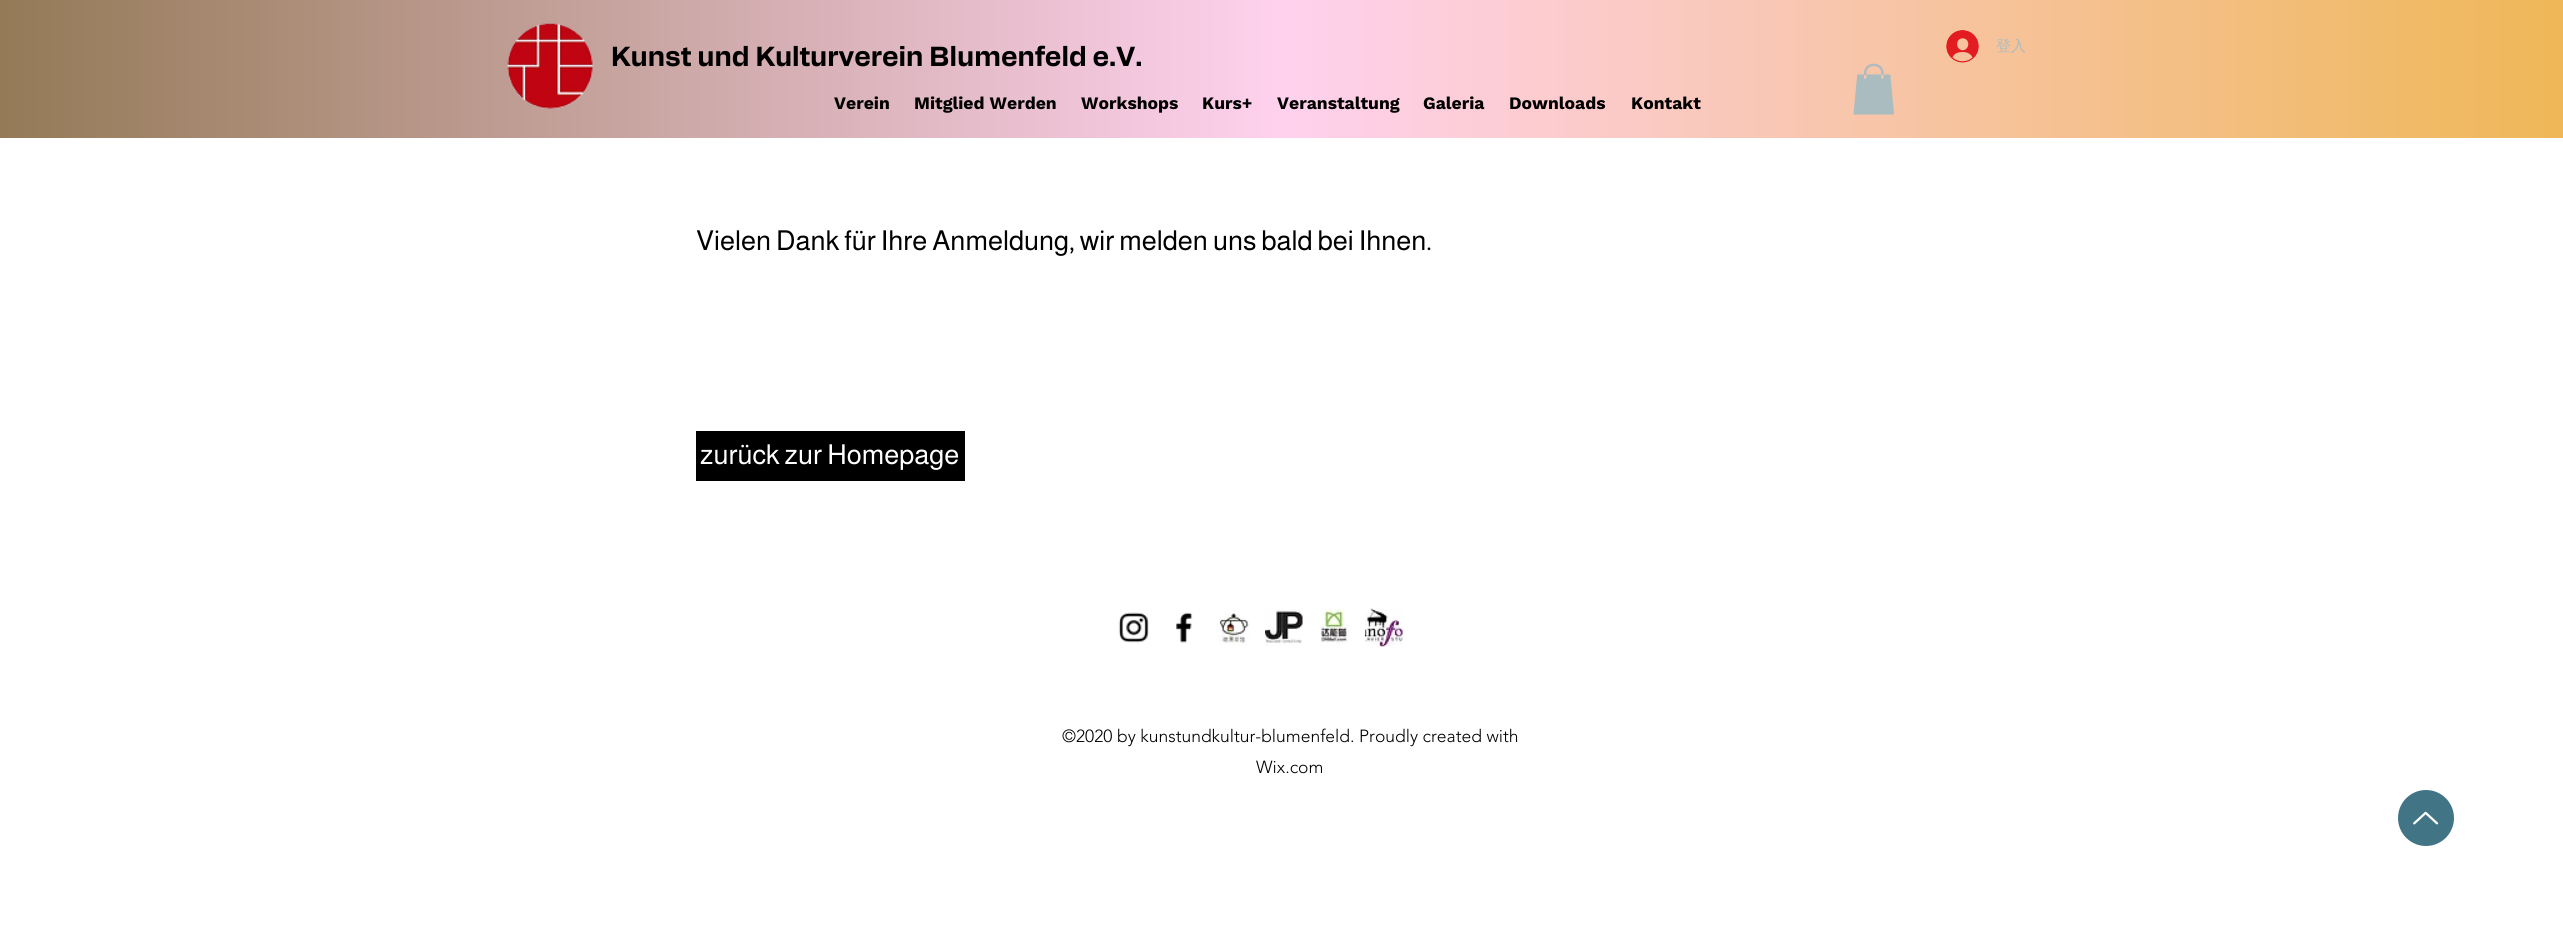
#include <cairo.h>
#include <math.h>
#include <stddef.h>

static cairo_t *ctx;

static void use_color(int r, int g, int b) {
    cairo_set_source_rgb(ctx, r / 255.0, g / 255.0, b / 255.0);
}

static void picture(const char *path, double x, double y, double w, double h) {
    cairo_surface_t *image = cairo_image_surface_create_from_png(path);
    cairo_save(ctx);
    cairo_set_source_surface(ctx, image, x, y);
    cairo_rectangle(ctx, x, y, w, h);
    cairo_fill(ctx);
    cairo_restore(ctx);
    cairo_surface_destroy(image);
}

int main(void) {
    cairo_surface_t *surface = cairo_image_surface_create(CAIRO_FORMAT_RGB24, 2563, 943);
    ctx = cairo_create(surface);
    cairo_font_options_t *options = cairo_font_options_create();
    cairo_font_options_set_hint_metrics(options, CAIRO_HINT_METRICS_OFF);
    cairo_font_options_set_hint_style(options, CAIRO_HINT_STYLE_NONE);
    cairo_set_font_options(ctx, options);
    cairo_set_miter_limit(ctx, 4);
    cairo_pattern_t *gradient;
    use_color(255, 255, 255);
    cairo_paint(ctx);
    gradient = cairo_pattern_create_linear(0, 69, 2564, 69);
    cairo_pattern_add_color_stop_rgba(gradient, 0, 0.58, 0.478, 0.341, 1);
    cairo_pattern_add_color_stop_rgba(gradient, 0.5, 1, 0.82, 0.933, 1);
    cairo_pattern_add_color_stop_rgba(gradient, 1, 0.937, 0.718, 0.341, 1);
    cairo_set_source(ctx, gradient);
    cairo_pattern_destroy(gradient);
    cairo_rectangle(ctx, 0, 0, 2563, 138);
    cairo_fill(ctx);
    picture("img1.png", 507, 23, 87, 86);
    cairo_select_font_face(ctx, "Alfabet", CAIRO_FONT_SLANT_NORMAL, CAIRO_FONT_WEIGHT_BOLD);
    cairo_set_font_size(ctx, 27.5);
    use_color(0, 0, 0);
    cairo_move_to(ctx, 611, 66);
    cairo_show_text(ctx, "Kunst und Kulturverein Blumenfeld e.V.");
    picture("img2.png", 1946, 30, 33, 33);
    cairo_select_font_face(ctx, "WenQuanYi Zen Hei Medium", CAIRO_FONT_SLANT_NORMAL, CAIRO_FONT_WEIGHT_NORMAL);
    cairo_set_font_size(ctx, 15);
    use_color(170, 188, 191);
    cairo_move_to(ctx, 1996, 51);
    cairo_show_text(ctx, "登入");
    cairo_select_font_face(ctx, "Work Sans", CAIRO_FONT_SLANT_NORMAL, CAIRO_FONT_WEIGHT_BOLD);
    cairo_set_font_size(ctx, 17.5);
    use_color(0, 0, 0);
    cairo_move_to(ctx, 834, 109);
    cairo_show_text(ctx, "Verein");
    cairo_move_to(ctx, 914, 109);
    cairo_show_text(ctx, "Mitglied Werden");
    cairo_move_to(ctx, 1081, 109);
    cairo_show_text(ctx, "Workshops");
    cairo_move_to(ctx, 1202, 109);
    cairo_show_text(ctx, "Kurs+");
    cairo_move_to(ctx, 1277, 109);
    cairo_show_text(ctx, "Veranstaltung");
    cairo_move_to(ctx, 1423, 109);
    cairo_show_text(ctx, "Galeria");
    cairo_move_to(ctx, 1509, 109);
    cairo_show_text(ctx, "Downloads");
    cairo_move_to(ctx, 1631, 109);
    cairo_show_text(ctx, "Kontakt");
    picture("img3.png", 1853, 63, 41, 52);
    cairo_select_font_face(ctx, "Almarai", CAIRO_FONT_SLANT_NORMAL, CAIRO_FONT_WEIGHT_NORMAL);
    cairo_set_font_size(ctx, 27.5);
    cairo_move_to(ctx, 696, 250);
    cairo_show_text(ctx, "Vielen Dank für Ihre Anmeldung, wir melden uns bald bei Ihnen.");
    cairo_rectangle(ctx, 696, 431, 269, 50);
    cairo_fill(ctx);
    use_color(255, 255, 255);
    cairo_move_to(ctx, 700, 464);
    cairo_show_text(ctx, "zurück zur Homepage");
    picture("img4.png", 1118, 612, 31, 31);
    picture("img5.png", 1176, 612, 17, 31);
    picture("img6.png", 1219, 613, 31, 33);
    picture("img7.png", 1265, 609, 38, 37);
    picture("img8.png", 1320, 609, 30, 35);
    picture("img9.png", 1365, 608, 38, 39);
    cairo_select_font_face(ctx, "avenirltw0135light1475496 Light", CAIRO_FONT_SLANT_NORMAL, CAIRO_FONT_WEIGHT_NORMAL);
    cairo_set_font_size(ctx, 17.5);
    use_color(0, 0, 0);
    cairo_move_to(ctx, 1062, 742);
    cairo_show_text(ctx, "©2020 by kunstundkultur-blumenfeld. Proudly created with");
    cairo_move_to(ctx, 1256, 773);
    cairo_show_text(ctx, "Wix.com");
    use_color(65, 117, 134);
    cairo_new_path(ctx);
    cairo_arc(ctx, 2426, 818, 28, 0, 2 * M_PI);
    cairo_fill(ctx);
    picture("img10.png", 2413, 811, 26, 14);
    cairo_surface_write_to_png(surface, "result.png");
    cairo_font_options_destroy(options);
    cairo_destroy(ctx);
    cairo_surface_destroy(surface);
    return 0;
}
